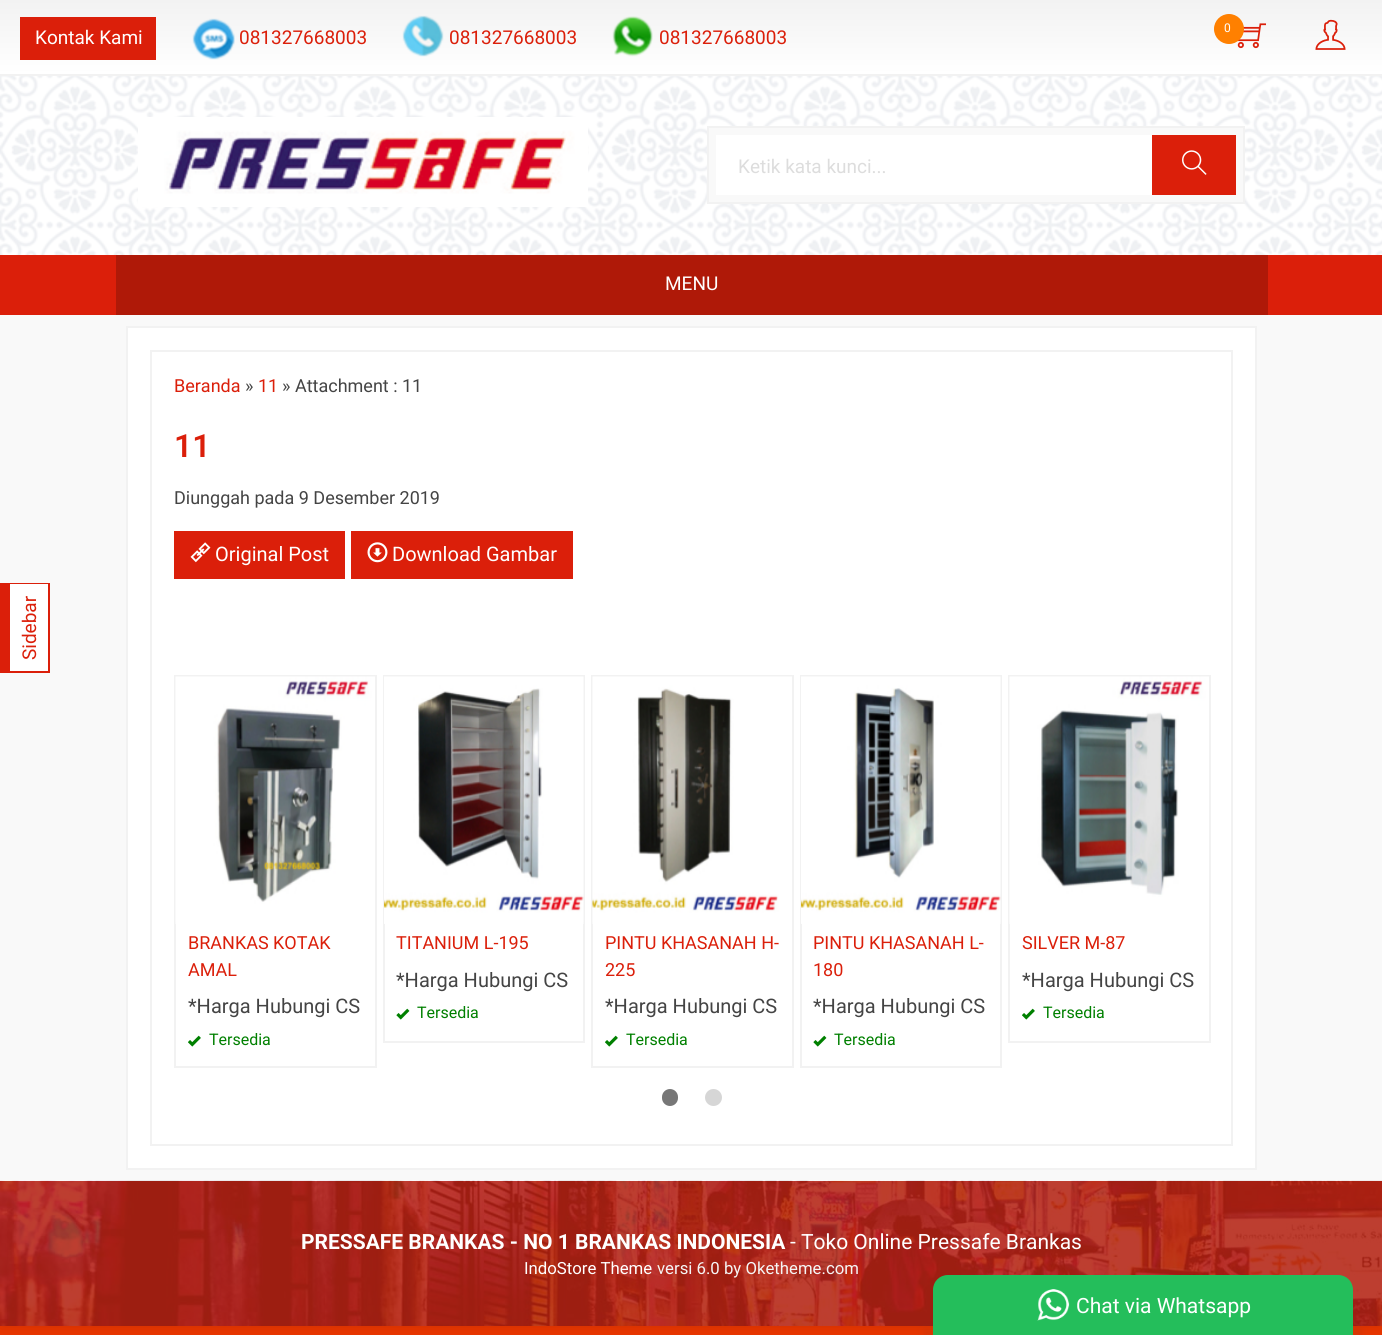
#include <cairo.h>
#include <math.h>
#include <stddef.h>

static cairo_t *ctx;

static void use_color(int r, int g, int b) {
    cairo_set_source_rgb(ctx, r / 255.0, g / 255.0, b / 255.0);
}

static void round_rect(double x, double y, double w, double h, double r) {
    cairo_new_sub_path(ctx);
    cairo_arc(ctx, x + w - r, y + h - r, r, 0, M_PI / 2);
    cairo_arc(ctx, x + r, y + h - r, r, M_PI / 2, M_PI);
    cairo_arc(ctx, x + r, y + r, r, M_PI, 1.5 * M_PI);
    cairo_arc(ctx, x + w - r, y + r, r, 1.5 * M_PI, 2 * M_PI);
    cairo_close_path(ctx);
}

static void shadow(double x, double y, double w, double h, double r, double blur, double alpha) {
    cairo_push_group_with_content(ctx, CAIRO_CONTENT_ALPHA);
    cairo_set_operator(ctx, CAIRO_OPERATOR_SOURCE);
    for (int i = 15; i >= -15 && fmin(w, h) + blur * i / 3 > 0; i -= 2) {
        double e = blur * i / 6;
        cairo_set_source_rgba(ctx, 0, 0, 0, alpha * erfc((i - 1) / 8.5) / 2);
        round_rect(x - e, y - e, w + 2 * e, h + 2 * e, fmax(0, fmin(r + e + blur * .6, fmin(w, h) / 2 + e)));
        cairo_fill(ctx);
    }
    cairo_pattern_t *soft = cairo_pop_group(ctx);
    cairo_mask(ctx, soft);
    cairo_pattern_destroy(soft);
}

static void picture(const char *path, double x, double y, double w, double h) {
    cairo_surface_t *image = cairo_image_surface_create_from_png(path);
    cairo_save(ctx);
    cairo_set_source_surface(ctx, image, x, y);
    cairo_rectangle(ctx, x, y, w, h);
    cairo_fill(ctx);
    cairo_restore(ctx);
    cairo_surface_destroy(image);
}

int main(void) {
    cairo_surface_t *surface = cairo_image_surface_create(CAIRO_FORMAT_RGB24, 1382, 1335);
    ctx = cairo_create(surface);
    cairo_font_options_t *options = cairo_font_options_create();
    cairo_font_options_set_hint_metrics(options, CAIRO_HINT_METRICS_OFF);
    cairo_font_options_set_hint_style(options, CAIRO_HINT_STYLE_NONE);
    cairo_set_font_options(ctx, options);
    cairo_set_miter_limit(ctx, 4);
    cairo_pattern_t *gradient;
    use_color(237, 55, 0);
    cairo_paint(ctx);
    use_color(0, 0, 0);
    shadow(0, 0, 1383, 1326, 0, 9, 0.15);
    gradient = cairo_pattern_create_linear(692, 0, 692, 74);
    cairo_pattern_add_color_stop_rgba(gradient, 0, 0.949, 0.949, 0.949, 1);
    cairo_pattern_add_color_stop_rgba(gradient, 1, 1, 1, 1, 1);
    cairo_set_source(ctx, gradient);
    cairo_pattern_destroy(gradient);
    cairo_rectangle(ctx, 0, 0, 1382, 74);
    cairo_fill(ctx);
    use_color(242, 242, 242);
    cairo_rectangle(ctx, 0, 74, 1382, 2);
    cairo_fill(ctx);
    picture("img1.png", 1237, 23, 29, 26);
    use_color(255, 128, 0);
    cairo_arc(ctx, 1229, 29, 15, 0, 2 * M_PI);
    cairo_fill(ctx);
    cairo_select_font_face(ctx, "Roboto", CAIRO_FONT_SLANT_NORMAL, CAIRO_FONT_WEIGHT_NORMAL);
    cairo_set_font_size(ctx, 12);
    use_color(255, 255, 255);
    cairo_move_to(ctx, 1224, 32);
    cairo_show_text(ctx, "0");
    picture("img2.png", 1315, 19, 31, 31);
    use_color(219, 31, 10);
    cairo_rectangle(ctx, 20, 17, 136, 43);
    cairo_fill(ctx);
    cairo_set_font_size(ctx, 19);
    use_color(255, 255, 255);
    cairo_move_to(ctx, 35, 44);
    cairo_show_text(ctx, "Kontak Kami");
    picture("img3.png", 192, 18, 43, 42);
    use_color(219, 31, 10);
    cairo_move_to(ctx, 239, 44);
    cairo_show_text(ctx, "081327668003");
    picture("img4.png", 402, 15, 42, 42);
    cairo_move_to(ctx, 449, 44);
    cairo_show_text(ctx, "081327668003");
    picture("img5.png", 612, 16, 41, 41);
    cairo_move_to(ctx, 659, 44);
    cairo_show_text(ctx, "081327668003");
    picture("img6.png", 0, 76, 1382, 179);
    picture("img7.png", 138, 117, 450, 90);
    use_color(249, 249, 249);
    cairo_rectangle(ctx, 708, 127, 536, 76);
    cairo_fill_preserve(ctx);
    use_color(242, 242, 242);
    cairo_stroke(ctx);
    use_color(255, 255, 255);
    cairo_rectangle(ctx, 716, 135, 436, 60);
    cairo_fill(ctx);
    use_color(221, 221, 221);
    cairo_move_to(ctx, 738, 173);
    cairo_show_text(ctx, "Ketik kata kunci...");
    use_color(219, 31, 10);
    cairo_rectangle(ctx, 1152, 135, 84, 60);
    cairo_fill(ctx);
    picture("img8.png", 1182, 150, 25, 25);
    cairo_rectangle(ctx, 0, 255, 1382, 60);
    cairo_fill(ctx);
    use_color(175, 25, 8);
    cairo_rectangle(ctx, 116, 255, 1152, 60);
    cairo_fill(ctx);
    use_color(255, 255, 255);
    cairo_move_to(ctx, 665, 290);
    cairo_show_text(ctx, "MENU");
    use_color(249, 249, 249);
    cairo_rectangle(ctx, 0, 315, 1382, 866);
    cairo_fill(ctx);
    use_color(255, 255, 255);
    cairo_rectangle(ctx, 10, 584, 38, 87);
    cairo_fill(ctx);
    use_color(219, 31, 10);
    cairo_rectangle(ctx, 0, 584, 10, 87);
    cairo_fill(ctx);
    cairo_rectangle(ctx, 0, 583, 50, 1);
    cairo_fill(ctx);
    cairo_rectangle(ctx, 48, 583, 2, 90);
    cairo_fill(ctx);
    cairo_rectangle(ctx, 0, 671, 50, 2);
    cairo_fill(ctx);
    cairo_save(ctx);
    cairo_translate(ctx, 36, 660);
    cairo_rotate(ctx, -90 * M_PI / 180);
    cairo_move_to(ctx, 0, 0);
    cairo_show_text(ctx, "Sidebar");
    cairo_restore(ctx);
    use_color(255, 255, 255);
    cairo_rectangle(ctx, 127, 327, 1129, 842);
    cairo_fill_preserve(ctx);
    use_color(242, 242, 242);
    cairo_stroke(ctx);
    cairo_rectangle(ctx, 151, 351, 1081, 794);
    cairo_stroke(ctx);
    cairo_set_font_size(ctx, 18);
    use_color(219, 31, 10);
    cairo_move_to(ctx, 174, 392);
    cairo_show_text(ctx, "Beranda");
    use_color(68, 68, 68);
    cairo_move_to(ctx, 245, 392);
    cairo_show_text(ctx, "»");
    use_color(219, 31, 10);
    cairo_move_to(ctx, 258, 392);
    cairo_show_text(ctx, "11");
    use_color(68, 68, 68);
    cairo_move_to(ctx, 282, 392);
    cairo_show_text(ctx, "» Attachment : 11");
    cairo_select_font_face(ctx, "Roboto SemiBold", CAIRO_FONT_SLANT_NORMAL, CAIRO_FONT_WEIGHT_NORMAL);
    cairo_set_font_size(ctx, 32);
    use_color(219, 31, 10);
    cairo_move_to(ctx, 174, 457);
    cairo_show_text(ctx, "11");
    cairo_select_font_face(ctx, "Roboto", CAIRO_FONT_SLANT_NORMAL, CAIRO_FONT_WEIGHT_NORMAL);
    cairo_set_font_size(ctx, 18);
    use_color(68, 68, 68);
    cairo_move_to(ctx, 174, 504);
    cairo_show_text(ctx, "Diunggah pada 9 Desember 2019");
    use_color(219, 31, 10);
    cairo_rectangle(ctx, 174, 531, 171, 48);
    cairo_fill(ctx);
    picture("img9.png", 190, 542, 21, 21);
    cairo_set_font_size(ctx, 20);
    use_color(255, 255, 255);
    cairo_move_to(ctx, 215, 561);
    cairo_show_text(ctx, "Original Post");
    use_color(219, 31, 10);
    cairo_rectangle(ctx, 351, 531, 222, 48);
    cairo_fill(ctx);
    picture("img10.png", 367, 542, 21, 21);
    use_color(255, 255, 255);
    cairo_move_to(ctx, 392, 561);
    cairo_show_text(ctx, "Download Gambar");
    cairo_rectangle(ctx, 175, 676, 201, 391);
    use_color(242, 242, 242);
    cairo_stroke(ctx);
    picture("img11.png", 175, 676, 200, 248);
    cairo_set_font_size(ctx, 18);
    use_color(219, 31, 10);
    cairo_move_to(ctx, 188, 949);
    cairo_show_text(ctx, "BRANKAS KOTAK");
    cairo_move_to(ctx, 188, 976);
    cairo_show_text(ctx, "AMAL");
    cairo_set_font_size(ctx, 20);
    use_color(68, 68, 68);
    cairo_move_to(ctx, 188, 1013);
    cairo_show_text(ctx, "*Harga Hubungi CS");
    picture("img12.png", 188, 1035, 13, 12);
    cairo_set_font_size(ctx, 16);
    use_color(0, 128, 0);
    cairo_move_to(ctx, 209, 1045);
    cairo_show_text(ctx, "Tersedia");
    cairo_rectangle(ctx, 384, 676, 200, 366);
    use_color(242, 242, 242);
    cairo_stroke(ctx);
    picture("img13.png", 384, 676, 200, 248);
    cairo_set_font_size(ctx, 18);
    use_color(219, 31, 10);
    cairo_move_to(ctx, 396, 949);
    cairo_show_text(ctx, "TITANIUM L-195");
    cairo_set_font_size(ctx, 20);
    use_color(68, 68, 68);
    cairo_move_to(ctx, 396, 987);
    cairo_show_text(ctx, "*Harga Hubungi CS");
    picture("img14.png", 396, 1008, 14, 12);
    cairo_set_font_size(ctx, 16);
    use_color(0, 128, 0);
    cairo_move_to(ctx, 417, 1018);
    cairo_show_text(ctx, "Tersedia");
    cairo_rectangle(ctx, 592, 676, 201, 391);
    use_color(242, 242, 242);
    cairo_stroke(ctx);
    picture("img15.png", 592, 676, 200, 248);
    cairo_set_font_size(ctx, 18);
    use_color(219, 31, 10);
    cairo_move_to(ctx, 605, 949);
    cairo_show_text(ctx, "PINTU KHASANAH H-");
    cairo_move_to(ctx, 605, 976);
    cairo_show_text(ctx, "225");
    cairo_set_font_size(ctx, 20);
    use_color(68, 68, 68);
    cairo_move_to(ctx, 605, 1013);
    cairo_show_text(ctx, "*Harga Hubungi CS");
    picture("img12.png", 605, 1035, 13, 12);
    cairo_set_font_size(ctx, 16);
    use_color(0, 128, 0);
    cairo_move_to(ctx, 626, 1045);
    cairo_show_text(ctx, "Tersedia");
    cairo_rectangle(ctx, 801, 676, 200, 391);
    use_color(242, 242, 242);
    cairo_stroke(ctx);
    picture("img16.png", 801, 676, 200, 248);
    cairo_set_font_size(ctx, 18);
    use_color(219, 31, 10);
    cairo_move_to(ctx, 813, 949);
    cairo_show_text(ctx, "PINTU KHASANAH L-");
    cairo_move_to(ctx, 813, 976);
    cairo_show_text(ctx, "180");
    cairo_set_font_size(ctx, 20);
    use_color(68, 68, 68);
    cairo_move_to(ctx, 813, 1013);
    cairo_show_text(ctx, "*Harga Hubungi CS");
    picture("img14.png", 813, 1035, 14, 12);
    cairo_set_font_size(ctx, 16);
    use_color(0, 128, 0);
    cairo_move_to(ctx, 834, 1045);
    cairo_show_text(ctx, "Tersedia");
    cairo_rectangle(ctx, 1009, 676, 201, 366);
    use_color(242, 242, 242);
    cairo_stroke(ctx);
    picture("img17.png", 1009, 676, 200, 248);
    cairo_set_font_size(ctx, 18);
    use_color(219, 31, 10);
    cairo_move_to(ctx, 1022, 949);
    cairo_show_text(ctx, "SILVER M-87");
    cairo_set_font_size(ctx, 20);
    use_color(68, 68, 68);
    cairo_move_to(ctx, 1022, 987);
    cairo_show_text(ctx, "*Harga Hubungi CS");
    picture("img12.png", 1022, 1008, 13, 12);
    cairo_set_font_size(ctx, 16);
    use_color(0, 128, 0);
    cairo_move_to(ctx, 1043, 1018);
    cairo_show_text(ctx, "Tersedia");
    use_color(119, 119, 119);
    round_rect(660.5, 1087.5, 19, 20, 9.5);
    cairo_fill_preserve(ctx);
    use_color(255, 255, 255);
    cairo_set_line_width(ctx, 3);
    cairo_stroke(ctx);
    use_color(214, 214, 214);
    cairo_arc(ctx, 713.5, 1097.5, 10, 0, 2 * M_PI);
    cairo_fill_preserve(ctx);
    use_color(255, 255, 255);
    cairo_stroke(ctx);
    use_color(176, 25, 8);
    cairo_rectangle(ctx, 0, 1181, 1382, 145);
    cairo_fill(ctx);
    picture("img18.png", 0, 1180, 1382, 146);
    cairo_select_font_face(ctx, "Roboto", CAIRO_FONT_SLANT_NORMAL, CAIRO_FONT_WEIGHT_BOLD);
    cairo_set_font_size(ctx, 21);
    use_color(255, 255, 255);
    cairo_move_to(ctx, 301, 1249);
    cairo_show_text(ctx, "PRESSAFE BRANKAS - NO 1 BRANKAS INDONESIA");
    cairo_select_font_face(ctx, "Roboto", CAIRO_FONT_SLANT_NORMAL, CAIRO_FONT_WEIGHT_NORMAL);
    cairo_move_to(ctx, 790, 1249);
    cairo_show_text(ctx, "- Toko Online Pressafe Brankas");
    cairo_set_font_size(ctx, 16.75);
    cairo_move_to(ctx, 524, 1274);
    cairo_show_text(ctx, "IndoStore Theme");
    use_color(245, 245, 245);
    cairo_move_to(ctx, 657, 1274);
    cairo_show_text(ctx, "versi 6.0 by Oketheme.com");
    use_color(51, 51, 51);
    shadow(924, 1329, 438, 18, 0, 4.5, 0.09);
    use_color(36, 190, 91);
    cairo_new_path(ctx);
    cairo_move_to(ctx, 948, 1275);
    cairo_line_to(ctx, 1338, 1275);
    cairo_curve_to(ctx, 1346.5, 1275, 1353, 1281.5, 1353, 1290);
    cairo_line_to(ctx, 1353, 1335);
    cairo_line_to(ctx, 933, 1335);
    cairo_line_to(ctx, 933, 1290);
    cairo_curve_to(ctx, 933, 1281.5, 939.5, 1275, 948, 1275);
    cairo_close_path(ctx);
    cairo_fill(ctx);
    picture("img19.png", 1037, 1289, 33, 32);
    cairo_set_font_size(ctx, 21);
    use_color(255, 255, 255);
    cairo_move_to(ctx, 1076, 1313);
    cairo_show_text(ctx, "Chat via Whatsapp");
    cairo_surface_write_to_png(surface, "result.png");
    cairo_font_options_destroy(options);
    cairo_destroy(ctx);
    cairo_surface_destroy(surface);
    return 0;
}
